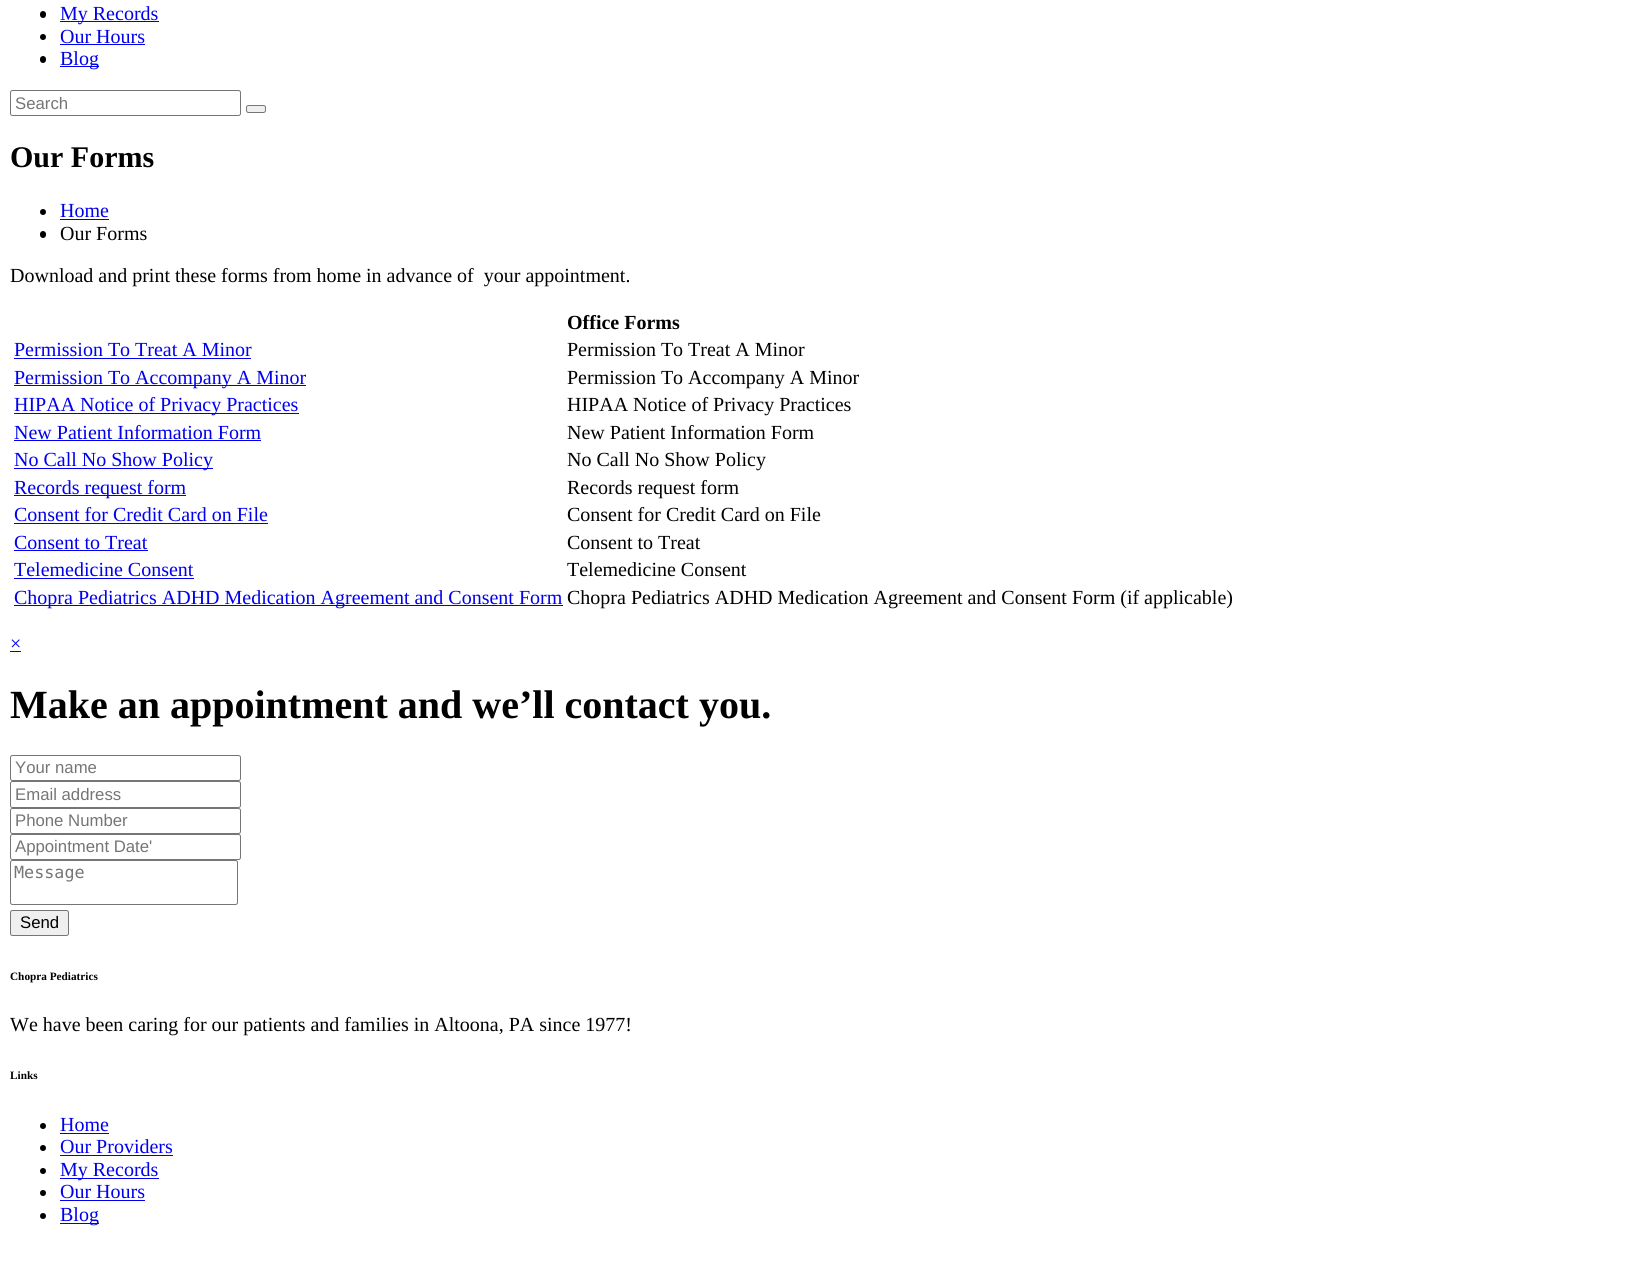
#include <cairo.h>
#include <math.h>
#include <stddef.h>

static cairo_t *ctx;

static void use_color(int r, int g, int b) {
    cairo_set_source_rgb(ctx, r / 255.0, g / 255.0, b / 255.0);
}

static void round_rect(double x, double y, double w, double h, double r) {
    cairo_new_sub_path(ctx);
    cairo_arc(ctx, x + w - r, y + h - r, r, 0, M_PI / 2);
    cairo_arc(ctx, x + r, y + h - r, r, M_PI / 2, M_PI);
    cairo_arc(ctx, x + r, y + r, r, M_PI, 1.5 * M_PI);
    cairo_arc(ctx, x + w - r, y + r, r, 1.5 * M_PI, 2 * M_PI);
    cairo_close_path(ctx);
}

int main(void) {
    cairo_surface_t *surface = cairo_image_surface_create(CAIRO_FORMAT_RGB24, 1633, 1267);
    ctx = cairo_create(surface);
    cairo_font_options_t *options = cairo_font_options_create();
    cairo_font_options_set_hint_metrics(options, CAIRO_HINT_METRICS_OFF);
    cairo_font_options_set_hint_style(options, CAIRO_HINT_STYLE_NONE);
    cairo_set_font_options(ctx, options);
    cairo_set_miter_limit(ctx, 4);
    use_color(255, 255, 255);
    cairo_paint(ctx);
    use_color(0, 0, 0);
    round_rect(40, 11, 6, 7, 3);
    cairo_fill(ctx);
    use_color(0, 0, 238);
    cairo_rectangle(ctx, 60, 21, 99, 1);
    cairo_fill(ctx);
    cairo_select_font_face(ctx, "Liberation Serif", CAIRO_FONT_SLANT_NORMAL, CAIRO_FONT_WEIGHT_NORMAL);
    cairo_set_font_size(ctx, 20);
    cairo_move_to(ctx, 60, 20);
    cairo_show_text(ctx, "My Records");
    use_color(0, 0, 0);
    cairo_new_path(ctx);
    cairo_arc(ctx, 43, 37, 3, 0, 2 * M_PI);
    cairo_fill(ctx);
    use_color(0, 0, 238);
    cairo_move_to(ctx, 60, 43);
    cairo_show_text(ctx, "Our Hours");
    cairo_rectangle(ctx, 60, 44, 85, 1);
    cairo_fill(ctx);
    use_color(0, 0, 0);
    round_rect(40, 56, 6, 7, 3);
    cairo_fill(ctx);
    use_color(0, 0, 238);
    cairo_rectangle(ctx, 60, 66, 39, 1);
    cairo_fill(ctx);
    cairo_move_to(ctx, 60, 65);
    cairo_show_text(ctx, "Blog");
    round_rect(10.5, 90.5, 230, 25, 2);
    use_color(118, 118, 118);
    cairo_set_line_width(ctx, 1);
    cairo_stroke(ctx);
    cairo_select_font_face(ctx, "Liberation Sans", CAIRO_FONT_SLANT_NORMAL, CAIRO_FONT_WEIGHT_NORMAL);
    cairo_set_font_size(ctx, 16.75);
    use_color(117, 117, 117);
    cairo_move_to(ctx, 15, 109);
    cairo_show_text(ctx, "Search");
    use_color(239, 239, 239);
    round_rect(246.5, 105.5, 19, 7, 2);
    cairo_fill_preserve(ctx);
    use_color(118, 118, 118);
    cairo_stroke(ctx);
    cairo_select_font_face(ctx, "Liberation Serif", CAIRO_FONT_SLANT_NORMAL, CAIRO_FONT_WEIGHT_BOLD);
    cairo_set_font_size(ctx, 30);
    use_color(0, 0, 0);
    cairo_move_to(ctx, 10, 167);
    cairo_show_text(ctx, "Our Forms");
    cairo_new_path(ctx);
    cairo_arc(ctx, 43, 212, 3, 0, 2 * M_PI);
    cairo_fill(ctx);
    cairo_select_font_face(ctx, "Liberation Serif", CAIRO_FONT_SLANT_NORMAL, CAIRO_FONT_WEIGHT_NORMAL);
    cairo_set_font_size(ctx, 20);
    use_color(0, 0, 238);
    cairo_move_to(ctx, 60, 217);
    cairo_show_text(ctx, "Home");
    cairo_rectangle(ctx, 60, 219, 49, 1);
    cairo_fill(ctx);
    use_color(0, 0, 0);
    round_rect(40, 231, 6, 7, 3);
    cairo_fill(ctx);
    cairo_move_to(ctx, 60, 240);
    cairo_show_text(ctx, "Our Forms");
    cairo_move_to(ctx, 10, 282);
    cairo_show_text(ctx, "Download and print these forms from home in advance of  your appointment.");
    cairo_select_font_face(ctx, "Liberation Serif", CAIRO_FONT_SLANT_NORMAL, CAIRO_FONT_WEIGHT_BOLD);
    cairo_move_to(ctx, 567, 329);
    cairo_show_text(ctx, "Office Forms");
    cairo_select_font_face(ctx, "Liberation Serif", CAIRO_FONT_SLANT_NORMAL, CAIRO_FONT_WEIGHT_NORMAL);
    use_color(0, 0, 238);
    cairo_move_to(ctx, 14, 356);
    cairo_show_text(ctx, "Permission To Treat A Minor");
    cairo_rectangle(ctx, 14, 358, 237, 1);
    cairo_fill(ctx);
    use_color(0, 0, 0);
    cairo_move_to(ctx, 567, 356);
    cairo_show_text(ctx, "Permission To Treat A Minor");
    use_color(0, 0, 238);
    cairo_rectangle(ctx, 14, 385, 292, 1);
    cairo_fill(ctx);
    cairo_move_to(ctx, 14, 384);
    cairo_show_text(ctx, "Permission To Accompany A Minor");
    use_color(0, 0, 0);
    cairo_move_to(ctx, 567, 384);
    cairo_show_text(ctx, "Permission To Accompany A Minor");
    use_color(0, 0, 238);
    cairo_rectangle(ctx, 14, 413, 285, 1);
    cairo_fill(ctx);
    cairo_move_to(ctx, 14, 411);
    cairo_show_text(ctx, "HIPAA Notice of Privacy Practices");
    use_color(0, 0, 0);
    cairo_move_to(ctx, 567, 411);
    cairo_show_text(ctx, "HIPAA Notice of Privacy Practices");
    use_color(0, 0, 238);
    cairo_move_to(ctx, 14, 439);
    cairo_show_text(ctx, "New Patient Information Form");
    cairo_rectangle(ctx, 14, 440, 247, 1);
    cairo_fill(ctx);
    use_color(0, 0, 0);
    cairo_move_to(ctx, 567, 439);
    cairo_show_text(ctx, "New Patient Information Form");
    use_color(0, 0, 238);
    cairo_rectangle(ctx, 14, 468, 199, 1);
    cairo_fill(ctx);
    cairo_move_to(ctx, 14, 466);
    cairo_show_text(ctx, "No Call No Show Policy");
    use_color(0, 0, 0);
    cairo_move_to(ctx, 567, 466);
    cairo_show_text(ctx, "No Call No Show Policy");
    use_color(0, 0, 238);
    cairo_rectangle(ctx, 14, 495, 172, 1);
    cairo_fill(ctx);
    cairo_move_to(ctx, 14, 494);
    cairo_show_text(ctx, "Records request form");
    use_color(0, 0, 0);
    cairo_move_to(ctx, 567, 494);
    cairo_show_text(ctx, "Records request form");
    use_color(0, 0, 238);
    cairo_move_to(ctx, 14, 521);
    cairo_show_text(ctx, "Consent for Credit Card on File");
    cairo_rectangle(ctx, 14, 523, 254, 1);
    cairo_fill(ctx);
    use_color(0, 0, 0);
    cairo_move_to(ctx, 567, 521);
    cairo_show_text(ctx, "Consent for Credit Card on File");
    use_color(0, 0, 238);
    cairo_move_to(ctx, 14, 549);
    cairo_show_text(ctx, "Consent to Treat");
    cairo_rectangle(ctx, 14, 550, 134, 1);
    cairo_fill(ctx);
    use_color(0, 0, 0);
    cairo_move_to(ctx, 567, 549);
    cairo_show_text(ctx, "Consent to Treat");
    use_color(0, 0, 238);
    cairo_move_to(ctx, 14, 576);
    cairo_show_text(ctx, "Telemedicine Consent");
    cairo_rectangle(ctx, 14, 578, 180, 1);
    cairo_fill(ctx);
    use_color(0, 0, 0);
    cairo_move_to(ctx, 567, 576);
    cairo_show_text(ctx, "Telemedicine Consent");
    use_color(0, 0, 238);
    cairo_rectangle(ctx, 14, 605, 549, 1);
    cairo_fill(ctx);
    cairo_move_to(ctx, 14, 604);
    cairo_show_text(ctx, "Chopra Pediatrics ADHD Medication Agreement and Consent Form");
    use_color(0, 0, 0);
    cairo_move_to(ctx, 567, 604);
    cairo_show_text(ctx, "Chopra Pediatrics ADHD Medication Agreement and Consent Form (if applicable)");
    use_color(0, 0, 238);
    cairo_move_to(ctx, 10, 650);
    cairo_show_text(ctx, "×");
    cairo_rectangle(ctx, 10, 651, 11, 1);
    cairo_fill(ctx);
    cairo_select_font_face(ctx, "Liberation Serif", CAIRO_FONT_SLANT_NORMAL, CAIRO_FONT_WEIGHT_BOLD);
    cairo_set_font_size(ctx, 40);
    use_color(0, 0, 0);
    cairo_move_to(ctx, 10, 718);
    cairo_show_text(ctx, "Make an appointment and we’ll contact you.");
    round_rect(10.5, 755.5, 230, 25, 2);
    use_color(118, 118, 118);
    cairo_stroke(ctx);
    cairo_select_font_face(ctx, "Liberation Sans", CAIRO_FONT_SLANT_NORMAL, CAIRO_FONT_WEIGHT_NORMAL);
    cairo_set_font_size(ctx, 16.75);
    use_color(117, 117, 117);
    cairo_move_to(ctx, 15, 773);
    cairo_show_text(ctx, "Your name");
    round_rect(10.5, 781.5, 230, 26, 2);
    use_color(118, 118, 118);
    cairo_stroke(ctx);
    use_color(117, 117, 117);
    cairo_move_to(ctx, 15, 800);
    cairo_show_text(ctx, "Email address");
    round_rect(10.5, 808.5, 230, 25, 2);
    use_color(118, 118, 118);
    cairo_stroke(ctx);
    use_color(117, 117, 117);
    cairo_move_to(ctx, 15, 826);
    cairo_show_text(ctx, "Phone Number");
    round_rect(10.5, 834.5, 230, 25, 2);
    use_color(118, 118, 118);
    cairo_stroke(ctx);
    use_color(117, 117, 117);
    cairo_move_to(ctx, 15, 852);
    cairo_show_text(ctx, "Appointment Date'");
    round_rect(10.5, 860.5, 227, 44, 2);
    use_color(118, 118, 118);
    cairo_stroke(ctx);
    cairo_select_font_face(ctx, "DejaVu Sans Mono", CAIRO_FONT_SLANT_NORMAL, CAIRO_FONT_WEIGHT_NORMAL);
    use_color(117, 117, 117);
    cairo_move_to(ctx, 14, 878);
    cairo_show_text(ctx, "Message");
    use_color(239, 239, 239);
    round_rect(10.5, 910.5, 58, 25, 2);
    cairo_fill_preserve(ctx);
    use_color(118, 118, 118);
    cairo_stroke(ctx);
    cairo_select_font_face(ctx, "Liberation Sans", CAIRO_FONT_SLANT_NORMAL, CAIRO_FONT_WEIGHT_NORMAL);
    use_color(0, 0, 0);
    cairo_move_to(ctx, 20, 928);
    cairo_show_text(ctx, "Send");
    cairo_select_font_face(ctx, "Liberation Serif", CAIRO_FONT_SLANT_NORMAL, CAIRO_FONT_WEIGHT_BOLD);
    cairo_set_font_size(ctx, 11.25);
    cairo_move_to(ctx, 10, 980);
    cairo_show_text(ctx, "Chopra Pediatrics");
    cairo_select_font_face(ctx, "Liberation Serif", CAIRO_FONT_SLANT_NORMAL, CAIRO_FONT_WEIGHT_NORMAL);
    cairo_set_font_size(ctx, 20);
    cairo_move_to(ctx, 10, 1031);
    cairo_show_text(ctx, "We have been caring for our patients and families in Altoona, PA since 1977!");
    cairo_select_font_face(ctx, "Liberation Serif", CAIRO_FONT_SLANT_NORMAL, CAIRO_FONT_WEIGHT_BOLD);
    cairo_set_font_size(ctx, 11.25);
    cairo_move_to(ctx, 10, 1079);
    cairo_show_text(ctx, "Links");
    cairo_new_path(ctx);
    cairo_arc(ctx, 43, 1126, 3, 0, 2 * M_PI);
    cairo_fill(ctx);
    cairo_select_font_face(ctx, "Liberation Serif", CAIRO_FONT_SLANT_NORMAL, CAIRO_FONT_WEIGHT_NORMAL);
    cairo_set_font_size(ctx, 20);
    use_color(0, 0, 238);
    cairo_move_to(ctx, 60, 1131);
    cairo_show_text(ctx, "Home");
    cairo_rectangle(ctx, 60, 1133, 49, 1);
    cairo_fill(ctx);
    use_color(0, 0, 0);
    cairo_arc(ctx, 43, 1148, 3, 0, 2 * M_PI);
    cairo_fill(ctx);
    use_color(0, 0, 238);
    cairo_move_to(ctx, 60, 1153);
    cairo_show_text(ctx, "Our Providers");
    cairo_rectangle(ctx, 60, 1155, 113, 1);
    cairo_fill(ctx);
    use_color(0, 0, 0);
    cairo_arc(ctx, 43, 1171, 3, 0, 2 * M_PI);
    cairo_fill(ctx);
    use_color(0, 0, 238);
    cairo_rectangle(ctx, 60, 1178, 99, 1);
    cairo_fill(ctx);
    cairo_move_to(ctx, 60, 1176);
    cairo_show_text(ctx, "My Records");
    use_color(0, 0, 0);
    cairo_new_path(ctx);
    cairo_arc(ctx, 43, 1193, 3, 0, 2 * M_PI);
    cairo_fill(ctx);
    use_color(0, 0, 238);
    cairo_move_to(ctx, 60, 1198);
    cairo_show_text(ctx, "Our Hours");
    cairo_rectangle(ctx, 60, 1200, 85, 1);
    cairo_fill(ctx);
    use_color(0, 0, 0);
    cairo_arc(ctx, 43, 1216, 3, 0, 2 * M_PI);
    cairo_fill(ctx);
    use_color(0, 0, 238);
    cairo_rectangle(ctx, 60, 1223, 39, 1);
    cairo_fill(ctx);
    cairo_move_to(ctx, 60, 1221);
    cairo_show_text(ctx, "Blog");
    cairo_surface_write_to_png(surface, "result.png");
    cairo_font_options_destroy(options);
    cairo_destroy(ctx);
    cairo_surface_destroy(surface);
    return 0;
}
